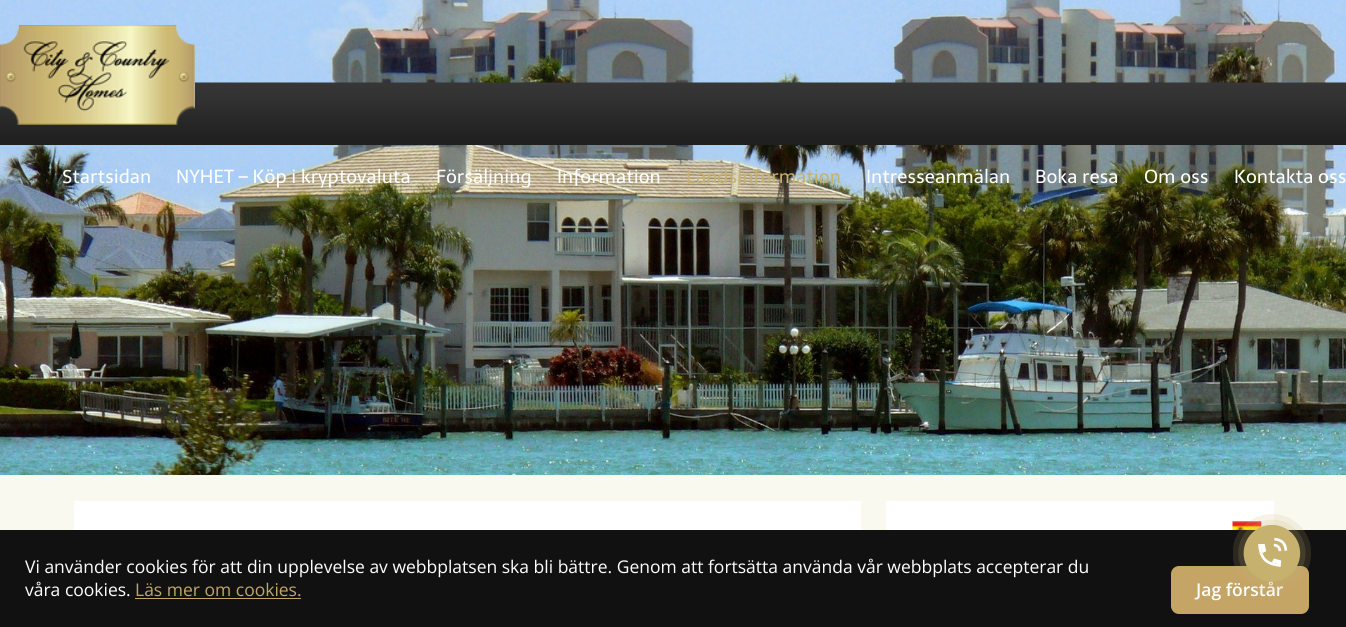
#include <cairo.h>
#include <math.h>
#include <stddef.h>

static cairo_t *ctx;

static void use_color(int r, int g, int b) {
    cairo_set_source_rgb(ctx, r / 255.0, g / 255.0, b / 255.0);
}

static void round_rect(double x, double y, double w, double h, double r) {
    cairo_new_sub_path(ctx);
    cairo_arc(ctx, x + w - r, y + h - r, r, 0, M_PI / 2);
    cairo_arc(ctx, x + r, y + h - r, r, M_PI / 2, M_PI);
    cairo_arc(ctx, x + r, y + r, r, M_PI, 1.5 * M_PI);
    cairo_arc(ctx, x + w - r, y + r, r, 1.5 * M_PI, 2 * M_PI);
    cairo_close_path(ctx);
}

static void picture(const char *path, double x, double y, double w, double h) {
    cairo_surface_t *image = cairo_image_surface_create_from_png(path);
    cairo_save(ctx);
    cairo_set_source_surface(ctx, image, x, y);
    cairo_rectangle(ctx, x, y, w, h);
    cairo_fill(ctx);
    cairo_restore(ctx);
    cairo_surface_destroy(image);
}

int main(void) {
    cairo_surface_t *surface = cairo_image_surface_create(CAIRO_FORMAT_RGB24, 1346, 627);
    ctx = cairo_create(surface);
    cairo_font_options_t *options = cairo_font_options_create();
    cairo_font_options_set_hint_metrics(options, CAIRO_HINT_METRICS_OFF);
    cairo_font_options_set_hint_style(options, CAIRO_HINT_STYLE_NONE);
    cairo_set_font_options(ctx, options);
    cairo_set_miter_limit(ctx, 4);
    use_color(249, 249, 240);
    cairo_paint(ctx);
    picture("img1.png", 0, 0, 1346, 475);
    picture("img2.png", 0, 82, 1346, 63);
    picture("img3.png", 0, 25, 195, 100);
    cairo_select_font_face(ctx, "Telex", CAIRO_FONT_SLANT_NORMAL, CAIRO_FONT_WEIGHT_NORMAL);
    cairo_set_font_size(ctx, 18.75);
    use_color(255, 255, 255);
    cairo_move_to(ctx, 62, 183);
    cairo_show_text(ctx, "Startsidan");
    cairo_move_to(ctx, 176, 183);
    cairo_show_text(ctx, "NYHET – Köp i kryptovaluta");
    cairo_move_to(ctx, 436, 183);
    cairo_show_text(ctx, "Försäljning");
    cairo_move_to(ctx, 557, 183);
    cairo_show_text(ctx, "Information");
    use_color(198, 177, 112);
    cairo_move_to(ctx, 686, 183);
    cairo_show_text(ctx, "Landsinformation");
    use_color(255, 255, 255);
    cairo_move_to(ctx, 866, 183);
    cairo_show_text(ctx, "Intresseanmälan");
    cairo_move_to(ctx, 1035, 183);
    cairo_show_text(ctx, "Boka resa");
    cairo_move_to(ctx, 1144, 183);
    cairo_show_text(ctx, "Om oss");
    cairo_move_to(ctx, 1234, 183);
    cairo_show_text(ctx, "Kontakta oss");
    cairo_rectangle(ctx, 74, 501, 787, 29);
    cairo_fill(ctx);
    cairo_rectangle(ctx, 886, 501, 388, 29);
    cairo_fill(ctx);
    picture("img4.png", 1232, 521, 30, 9);
    use_color(17, 17, 17);
    cairo_rectangle(ctx, 0, 530, 1346, 97);
    cairo_fill(ctx);
    use_color(196, 165, 102);
    round_rect(1171, 566, 138, 48, 8);
    cairo_fill(ctx);
    cairo_select_font_face(ctx, "Open Sans SemiBold", CAIRO_FONT_SLANT_NORMAL, CAIRO_FONT_WEIGHT_NORMAL);
    cairo_set_font_size(ctx, 17.5);
    use_color(255, 255, 255);
    cairo_move_to(ctx, 1196, 596);
    cairo_show_text(ctx, "Jag förstår");
    picture("img5.png", 1233, 514, 78, 78);
    cairo_select_font_face(ctx, "Open Sans", CAIRO_FONT_SLANT_NORMAL, CAIRO_FONT_WEIGHT_NORMAL);
    cairo_move_to(ctx, 25, 573);
    cairo_show_text(ctx, "Vi använder cookies för att din upplevelse av webbplatsen ska bli bättre. Genom att fortsätta använda vår webbplats accepterar du");
    cairo_move_to(ctx, 25, 596);
    cairo_show_text(ctx, "våra cookies.");
    use_color(196, 165, 102);
    cairo_move_to(ctx, 135, 596);
    cairo_show_text(ctx, "Läs mer om cookies.");
    cairo_rectangle(ctx, 135, 598, 166, 1);
    cairo_fill(ctx);
    cairo_surface_write_to_png(surface, "result.png");
    cairo_font_options_destroy(options);
    cairo_destroy(ctx);
    cairo_surface_destroy(surface);
    return 0;
}
